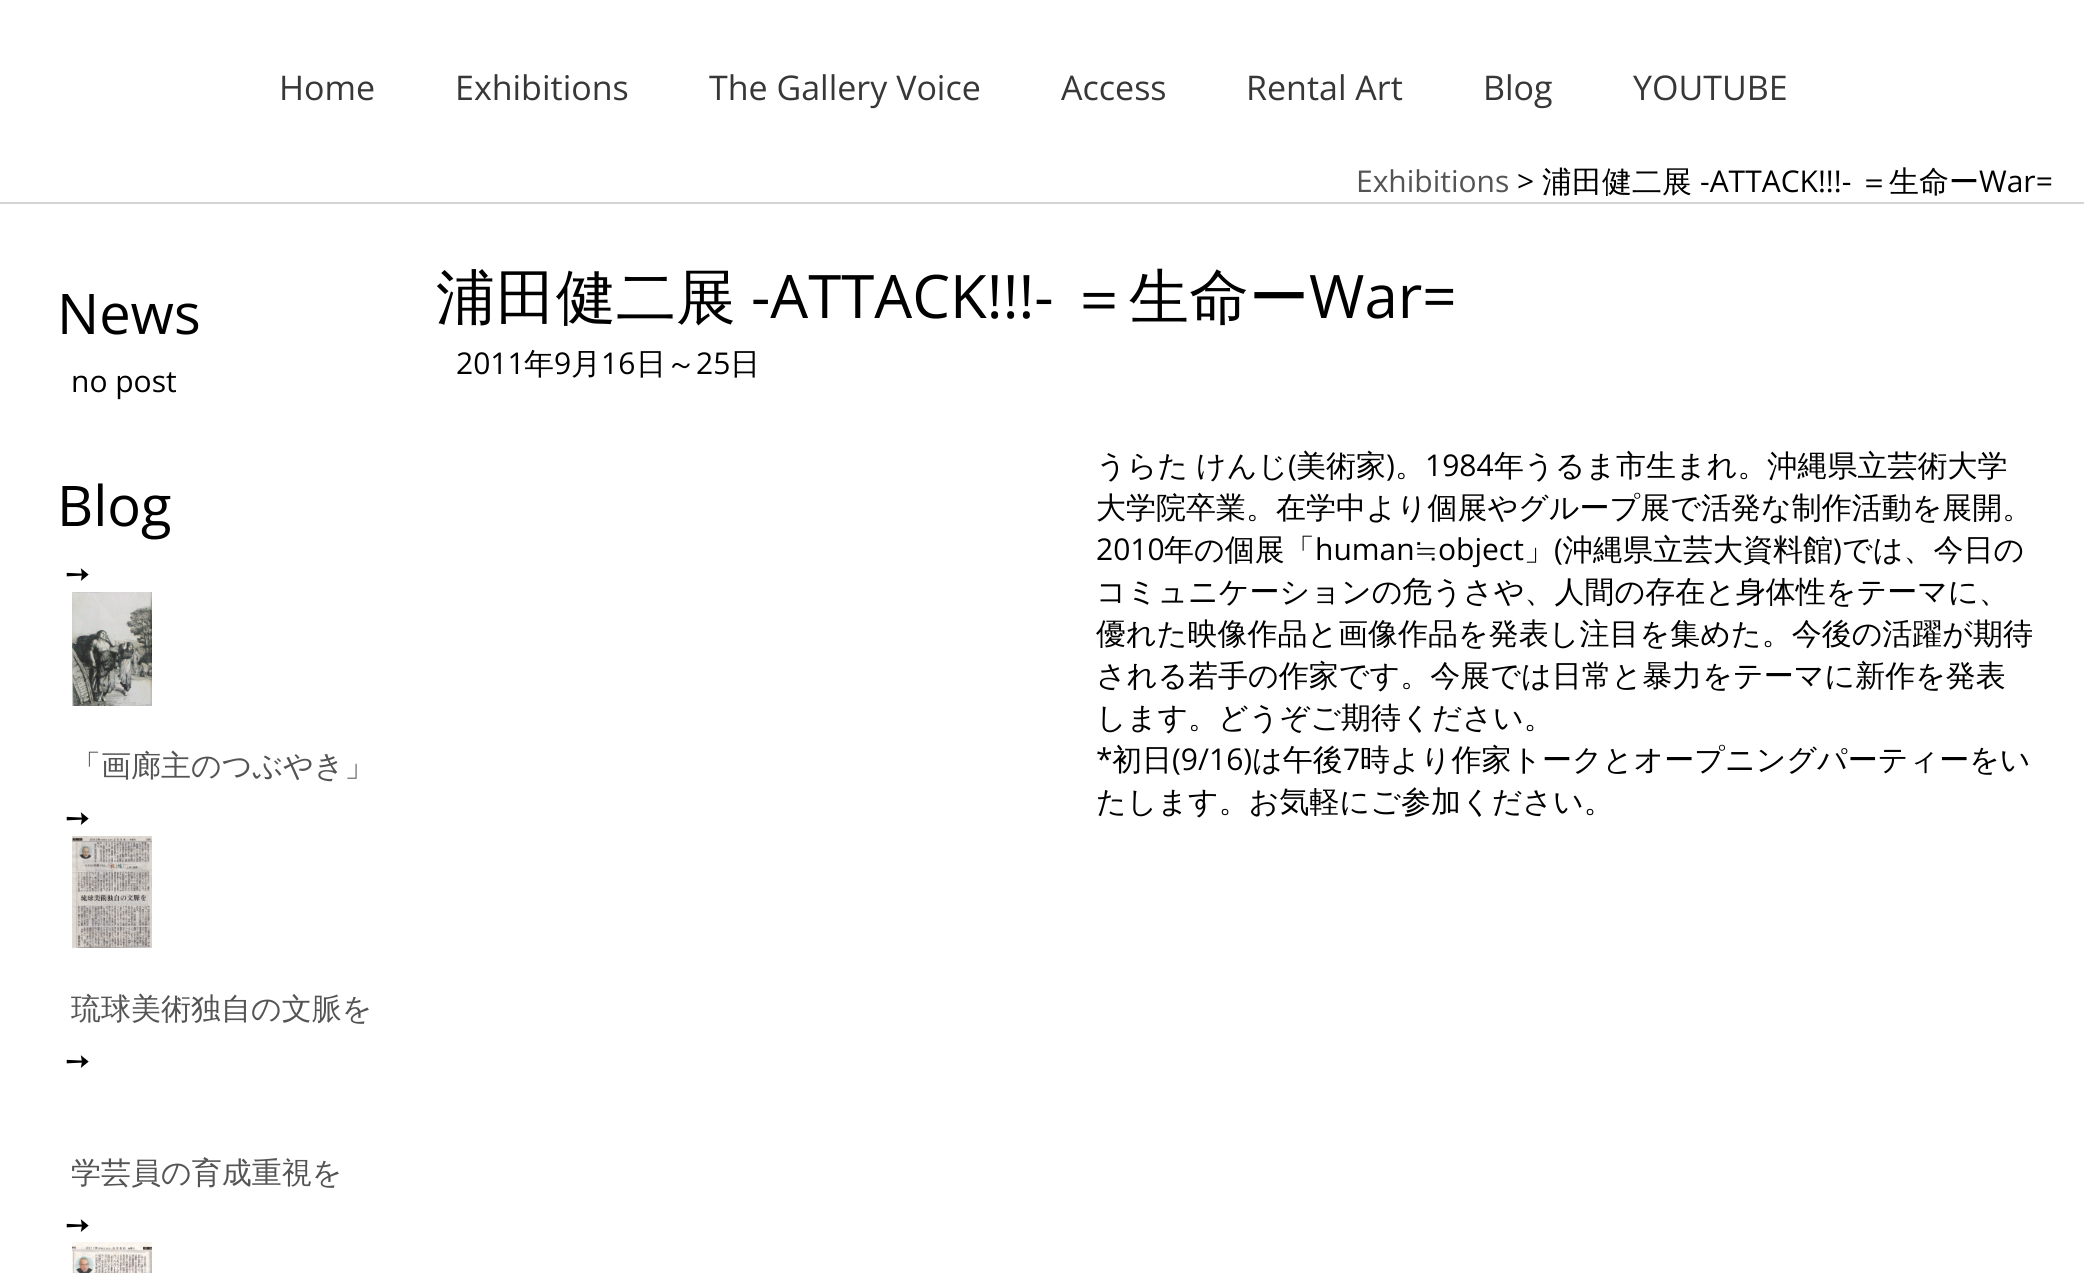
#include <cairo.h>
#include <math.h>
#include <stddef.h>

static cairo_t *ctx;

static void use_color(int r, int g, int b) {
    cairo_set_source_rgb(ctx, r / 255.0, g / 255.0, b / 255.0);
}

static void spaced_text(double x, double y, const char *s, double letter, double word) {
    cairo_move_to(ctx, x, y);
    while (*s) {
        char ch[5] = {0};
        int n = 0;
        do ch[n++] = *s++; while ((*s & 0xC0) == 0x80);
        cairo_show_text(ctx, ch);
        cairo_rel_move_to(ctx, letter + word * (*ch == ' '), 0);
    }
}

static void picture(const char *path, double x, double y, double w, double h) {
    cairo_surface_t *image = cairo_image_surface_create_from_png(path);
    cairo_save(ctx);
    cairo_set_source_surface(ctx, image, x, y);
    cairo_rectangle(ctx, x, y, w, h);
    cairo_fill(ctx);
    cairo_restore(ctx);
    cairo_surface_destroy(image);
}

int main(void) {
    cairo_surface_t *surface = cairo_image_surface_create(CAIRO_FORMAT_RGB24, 2084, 1273);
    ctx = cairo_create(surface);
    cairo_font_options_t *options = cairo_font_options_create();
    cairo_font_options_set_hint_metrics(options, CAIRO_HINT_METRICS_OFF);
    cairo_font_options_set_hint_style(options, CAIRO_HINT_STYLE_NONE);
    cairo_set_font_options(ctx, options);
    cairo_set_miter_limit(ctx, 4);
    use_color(255, 255, 255);
    cairo_paint(ctx);
    use_color(213, 213, 213);
    cairo_rectangle(ctx, 0, 202, 2084, 2);
    cairo_fill(ctx);
    cairo_select_font_face(ctx, "Open Sans", CAIRO_FONT_SLANT_NORMAL, CAIRO_FONT_WEIGHT_NORMAL);
    cairo_set_font_size(ctx, 34);
    use_color(55, 55, 55);
    cairo_move_to(ctx, 279, 100);
    cairo_show_text(ctx, "Home");
    cairo_move_to(ctx, 455, 100);
    cairo_show_text(ctx, "Exhibitions");
    cairo_move_to(ctx, 709, 100);
    cairo_show_text(ctx, "The Gallery Voice");
    cairo_move_to(ctx, 1061, 100);
    cairo_show_text(ctx, "Access");
    cairo_move_to(ctx, 1246, 100);
    cairo_show_text(ctx, "Rental Art");
    cairo_move_to(ctx, 1483, 100);
    cairo_show_text(ctx, "Blog");
    cairo_move_to(ctx, 1633, 100);
    cairo_show_text(ctx, "YOUTUBE");
    cairo_set_font_size(ctx, 30);
    use_color(84, 84, 84);
    cairo_move_to(ctx, 1356, 192);
    cairo_show_text(ctx, "Exhibitions");
    use_color(0, 0, 0);
    cairo_move_to(ctx, 1517, 192);
    cairo_show_text(ctx, ">");
    cairo_select_font_face(ctx, "WenQuanYi Zen Hei Medium", CAIRO_FONT_SLANT_NORMAL, CAIRO_FONT_WEIGHT_NORMAL);
    cairo_move_to(ctx, 1542, 192);
    cairo_show_text(ctx, "浦田健二展");
    cairo_select_font_face(ctx, "Open Sans", CAIRO_FONT_SLANT_NORMAL, CAIRO_FONT_WEIGHT_NORMAL);
    cairo_move_to(ctx, 1700, 192);
    cairo_show_text(ctx, "-ATTACK!!!-");
    cairo_select_font_face(ctx, "WenQuanYi Zen Hei Medium", CAIRO_FONT_SLANT_NORMAL, CAIRO_FONT_WEIGHT_NORMAL);
    cairo_move_to(ctx, 1859, 192);
    cairo_show_text(ctx, "＝生命ー");
    cairo_select_font_face(ctx, "Open Sans", CAIRO_FONT_SLANT_NORMAL, CAIRO_FONT_WEIGHT_NORMAL);
    cairo_move_to(ctx, 1979, 192);
    cairo_show_text(ctx, "War=");
    cairo_set_font_size(ctx, 56);
    cairo_move_to(ctx, 57, 334);
    cairo_show_text(ctx, "News");
    cairo_set_font_size(ctx, 30);
    cairo_move_to(ctx, 71, 392);
    cairo_show_text(ctx, "no post");
    cairo_set_font_size(ctx, 56);
    cairo_move_to(ctx, 57, 526);
    cairo_show_text(ctx, "Blog");
    cairo_select_font_face(ctx, "DejaVu Sans", CAIRO_FONT_SLANT_NORMAL, CAIRO_FONT_WEIGHT_NORMAL);
    cairo_set_font_size(ctx, 30);
    cairo_move_to(ctx, 65, 584);
    cairo_show_text(ctx, "➙");
    picture("img1.png", 72, 592, 80, 114);
    cairo_select_font_face(ctx, "WenQuanYi Zen Hei Medium", CAIRO_FONT_SLANT_NORMAL, CAIRO_FONT_WEIGHT_NORMAL);
    use_color(84, 84, 84);
    cairo_move_to(ctx, 71, 776);
    cairo_show_text(ctx, "「画廊主のつぶやき」");
    cairo_select_font_face(ctx, "DejaVu Sans", CAIRO_FONT_SLANT_NORMAL, CAIRO_FONT_WEIGHT_NORMAL);
    use_color(0, 0, 0);
    cairo_move_to(ctx, 65, 828);
    cairo_show_text(ctx, "➙");
    picture("img2.png", 72, 836, 80, 112);
    cairo_select_font_face(ctx, "WenQuanYi Zen Hei Medium", CAIRO_FONT_SLANT_NORMAL, CAIRO_FONT_WEIGHT_NORMAL);
    use_color(84, 84, 84);
    cairo_move_to(ctx, 71, 1019);
    cairo_show_text(ctx, "琉球美術独自の文脈を");
    cairo_select_font_face(ctx, "DejaVu Sans", CAIRO_FONT_SLANT_NORMAL, CAIRO_FONT_WEIGHT_NORMAL);
    use_color(0, 0, 0);
    cairo_move_to(ctx, 65, 1071);
    cairo_show_text(ctx, "➙");
    cairo_select_font_face(ctx, "WenQuanYi Zen Hei Medium", CAIRO_FONT_SLANT_NORMAL, CAIRO_FONT_WEIGHT_NORMAL);
    use_color(84, 84, 84);
    cairo_move_to(ctx, 71, 1183);
    cairo_show_text(ctx, "学芸員の育成重視を");
    cairo_select_font_face(ctx, "DejaVu Sans", CAIRO_FONT_SLANT_NORMAL, CAIRO_FONT_WEIGHT_NORMAL);
    use_color(0, 0, 0);
    cairo_move_to(ctx, 65, 1235);
    cairo_show_text(ctx, "➙");
    picture("img3.png", 72, 1242, 80, 31);
    cairo_select_font_face(ctx, "WenQuanYi Zen Hei Medium", CAIRO_FONT_SLANT_NORMAL, CAIRO_FONT_WEIGHT_NORMAL);
    cairo_set_font_size(ctx, 60);
    cairo_move_to(ctx, 436, 318);
    cairo_show_text(ctx, "浦田健二展");
    cairo_select_font_face(ctx, "Open Sans", CAIRO_FONT_SLANT_NORMAL, CAIRO_FONT_WEIGHT_NORMAL);
    cairo_move_to(ctx, 751, 318);
    cairo_show_text(ctx, "-ATTACK!!!-");
    cairo_select_font_face(ctx, "WenQuanYi Zen Hei Medium", CAIRO_FONT_SLANT_NORMAL, CAIRO_FONT_WEIGHT_NORMAL);
    cairo_move_to(ctx, 1069, 318);
    cairo_show_text(ctx, "＝生命ー");
    cairo_select_font_face(ctx, "Open Sans", CAIRO_FONT_SLANT_NORMAL, CAIRO_FONT_WEIGHT_NORMAL);
    cairo_move_to(ctx, 1309, 318);
    cairo_show_text(ctx, "War=");
    cairo_set_font_size(ctx, 30);
    cairo_move_to(ctx, 456, 374);
    cairo_show_text(ctx, "2011");
    cairo_select_font_face(ctx, "WenQuanYi Zen Hei Medium", CAIRO_FONT_SLANT_NORMAL, CAIRO_FONT_WEIGHT_NORMAL);
    cairo_move_to(ctx, 524, 374);
    cairo_show_text(ctx, "年");
    cairo_select_font_face(ctx, "Open Sans", CAIRO_FONT_SLANT_NORMAL, CAIRO_FONT_WEIGHT_NORMAL);
    cairo_move_to(ctx, 554, 374);
    cairo_show_text(ctx, "9");
    cairo_select_font_face(ctx, "WenQuanYi Zen Hei Medium", CAIRO_FONT_SLANT_NORMAL, CAIRO_FONT_WEIGHT_NORMAL);
    cairo_move_to(ctx, 571, 374);
    cairo_show_text(ctx, "月");
    cairo_select_font_face(ctx, "Open Sans", CAIRO_FONT_SLANT_NORMAL, CAIRO_FONT_WEIGHT_NORMAL);
    cairo_move_to(ctx, 601, 374);
    cairo_show_text(ctx, "16");
    cairo_select_font_face(ctx, "WenQuanYi Zen Hei Medium", CAIRO_FONT_SLANT_NORMAL, CAIRO_FONT_WEIGHT_NORMAL);
    cairo_move_to(ctx, 636, 374);
    cairo_show_text(ctx, "日～");
    cairo_select_font_face(ctx, "Open Sans", CAIRO_FONT_SLANT_NORMAL, CAIRO_FONT_WEIGHT_NORMAL);
    cairo_move_to(ctx, 696, 374);
    cairo_show_text(ctx, "25");
    cairo_select_font_face(ctx, "WenQuanYi Zen Hei Medium", CAIRO_FONT_SLANT_NORMAL, CAIRO_FONT_WEIGHT_NORMAL);
    cairo_move_to(ctx, 730, 374);
    cairo_show_text(ctx, "日");
    spaced_text(1096, 476, "うらた けんじ", 0, -1);
    cairo_select_font_face(ctx, "Open Sans", CAIRO_FONT_SLANT_NORMAL, CAIRO_FONT_WEIGHT_NORMAL);
    cairo_move_to(ctx, 1288, 476);
    cairo_show_text(ctx, "(");
    cairo_select_font_face(ctx, "WenQuanYi Zen Hei Medium", CAIRO_FONT_SLANT_NORMAL, CAIRO_FONT_WEIGHT_NORMAL);
    cairo_move_to(ctx, 1296, 476);
    cairo_show_text(ctx, "美術家 。");
    cairo_move_to(ctx, 1494, 476);
    cairo_show_text(ctx, "年うるま市生まれ。沖縄県立芸術大学");
    cairo_select_font_face(ctx, "Open Sans", CAIRO_FONT_SLANT_NORMAL, CAIRO_FONT_WEIGHT_NORMAL);
    cairo_move_to(ctx, 1386, 476);
    cairo_show_text(ctx, ")");
    cairo_move_to(ctx, 1425, 476);
    cairo_show_text(ctx, "1984");
    cairo_select_font_face(ctx, "WenQuanYi Zen Hei Medium", CAIRO_FONT_SLANT_NORMAL, CAIRO_FONT_WEIGHT_NORMAL);
    cairo_move_to(ctx, 1096, 518);
    cairo_show_text(ctx, "大学院卒業。在学中より個展やグループ展で活発な制作活動を展開。");
    cairo_select_font_face(ctx, "Open Sans", CAIRO_FONT_SLANT_NORMAL, CAIRO_FONT_WEIGHT_NORMAL);
    cairo_move_to(ctx, 1096, 560);
    cairo_show_text(ctx, "2010");
    cairo_select_font_face(ctx, "WenQuanYi Zen Hei Medium", CAIRO_FONT_SLANT_NORMAL, CAIRO_FONT_WEIGHT_NORMAL);
    cairo_move_to(ctx, 1164, 560);
    cairo_show_text(ctx, "年の個展「");
    cairo_select_font_face(ctx, "Open Sans", CAIRO_FONT_SLANT_NORMAL, CAIRO_FONT_WEIGHT_NORMAL);
    cairo_move_to(ctx, 1315, 560);
    cairo_show_text(ctx, "human");
    cairo_move_to(ctx, 1438, 560);
    cairo_show_text(ctx, "object");
    cairo_select_font_face(ctx, "WenQuanYi Zen Hei Medium", CAIRO_FONT_SLANT_NORMAL, CAIRO_FONT_WEIGHT_NORMAL);
    cairo_move_to(ctx, 1524, 560);
    cairo_show_text(ctx, "」 沖縄県立芸大資料館 では、今日の");
    cairo_move_to(ctx, 1414, 560);
    cairo_show_text(ctx, "≒");
    cairo_select_font_face(ctx, "Open Sans", CAIRO_FONT_SLANT_NORMAL, CAIRO_FONT_WEIGHT_NORMAL);
    cairo_move_to(ctx, 1554, 560);
    cairo_show_text(ctx, "(");
    cairo_move_to(ctx, 1833, 560);
    cairo_show_text(ctx, ")");
    cairo_select_font_face(ctx, "WenQuanYi Zen Hei Medium", CAIRO_FONT_SLANT_NORMAL, CAIRO_FONT_WEIGHT_NORMAL);
    cairo_move_to(ctx, 1096, 602);
    cairo_show_text(ctx, "コミュニケーションの危うさや、人間の存在と身体性をテーマに、");
    cairo_move_to(ctx, 1096, 644);
    cairo_show_text(ctx, "優れた映像作品と画像作品を発表し注目を集めた。今後の活躍が期待");
    cairo_move_to(ctx, 1096, 686);
    cairo_show_text(ctx, "される若手の作家です。今展では日常と暴力をテーマに新作を発表");
    cairo_move_to(ctx, 1096, 728);
    cairo_show_text(ctx, "します。どうぞご期待ください。");
    cairo_select_font_face(ctx, "Open Sans", CAIRO_FONT_SLANT_NORMAL, CAIRO_FONT_WEIGHT_NORMAL);
    cairo_move_to(ctx, 1096, 770);
    cairo_show_text(ctx, "*");
    cairo_select_font_face(ctx, "WenQuanYi Zen Hei Medium", CAIRO_FONT_SLANT_NORMAL, CAIRO_FONT_WEIGHT_NORMAL);
    cairo_move_to(ctx, 1112, 770);
    cairo_show_text(ctx, "初日");
    cairo_select_font_face(ctx, "Open Sans", CAIRO_FONT_SLANT_NORMAL, CAIRO_FONT_WEIGHT_NORMAL);
    cairo_move_to(ctx, 1172, 770);
    cairo_show_text(ctx, "(9/16)");
    cairo_select_font_face(ctx, "WenQuanYi Zen Hei Medium", CAIRO_FONT_SLANT_NORMAL, CAIRO_FONT_WEIGHT_NORMAL);
    cairo_move_to(ctx, 1252, 770);
    cairo_show_text(ctx, "は午後");
    cairo_select_font_face(ctx, "Open Sans", CAIRO_FONT_SLANT_NORMAL, CAIRO_FONT_WEIGHT_NORMAL);
    cairo_move_to(ctx, 1343, 770);
    cairo_show_text(ctx, "7");
    cairo_select_font_face(ctx, "WenQuanYi Zen Hei Medium", CAIRO_FONT_SLANT_NORMAL, CAIRO_FONT_WEIGHT_NORMAL);
    cairo_move_to(ctx, 1360, 770);
    cairo_show_text(ctx, "時より作家トークとオープニングパーティーをい");
    cairo_move_to(ctx, 1096, 812);
    cairo_show_text(ctx, "たします。お気軽にご参加ください。");
    cairo_surface_write_to_png(surface, "result.png");
    cairo_font_options_destroy(options);
    cairo_destroy(ctx);
    cairo_surface_destroy(surface);
    return 0;
}
